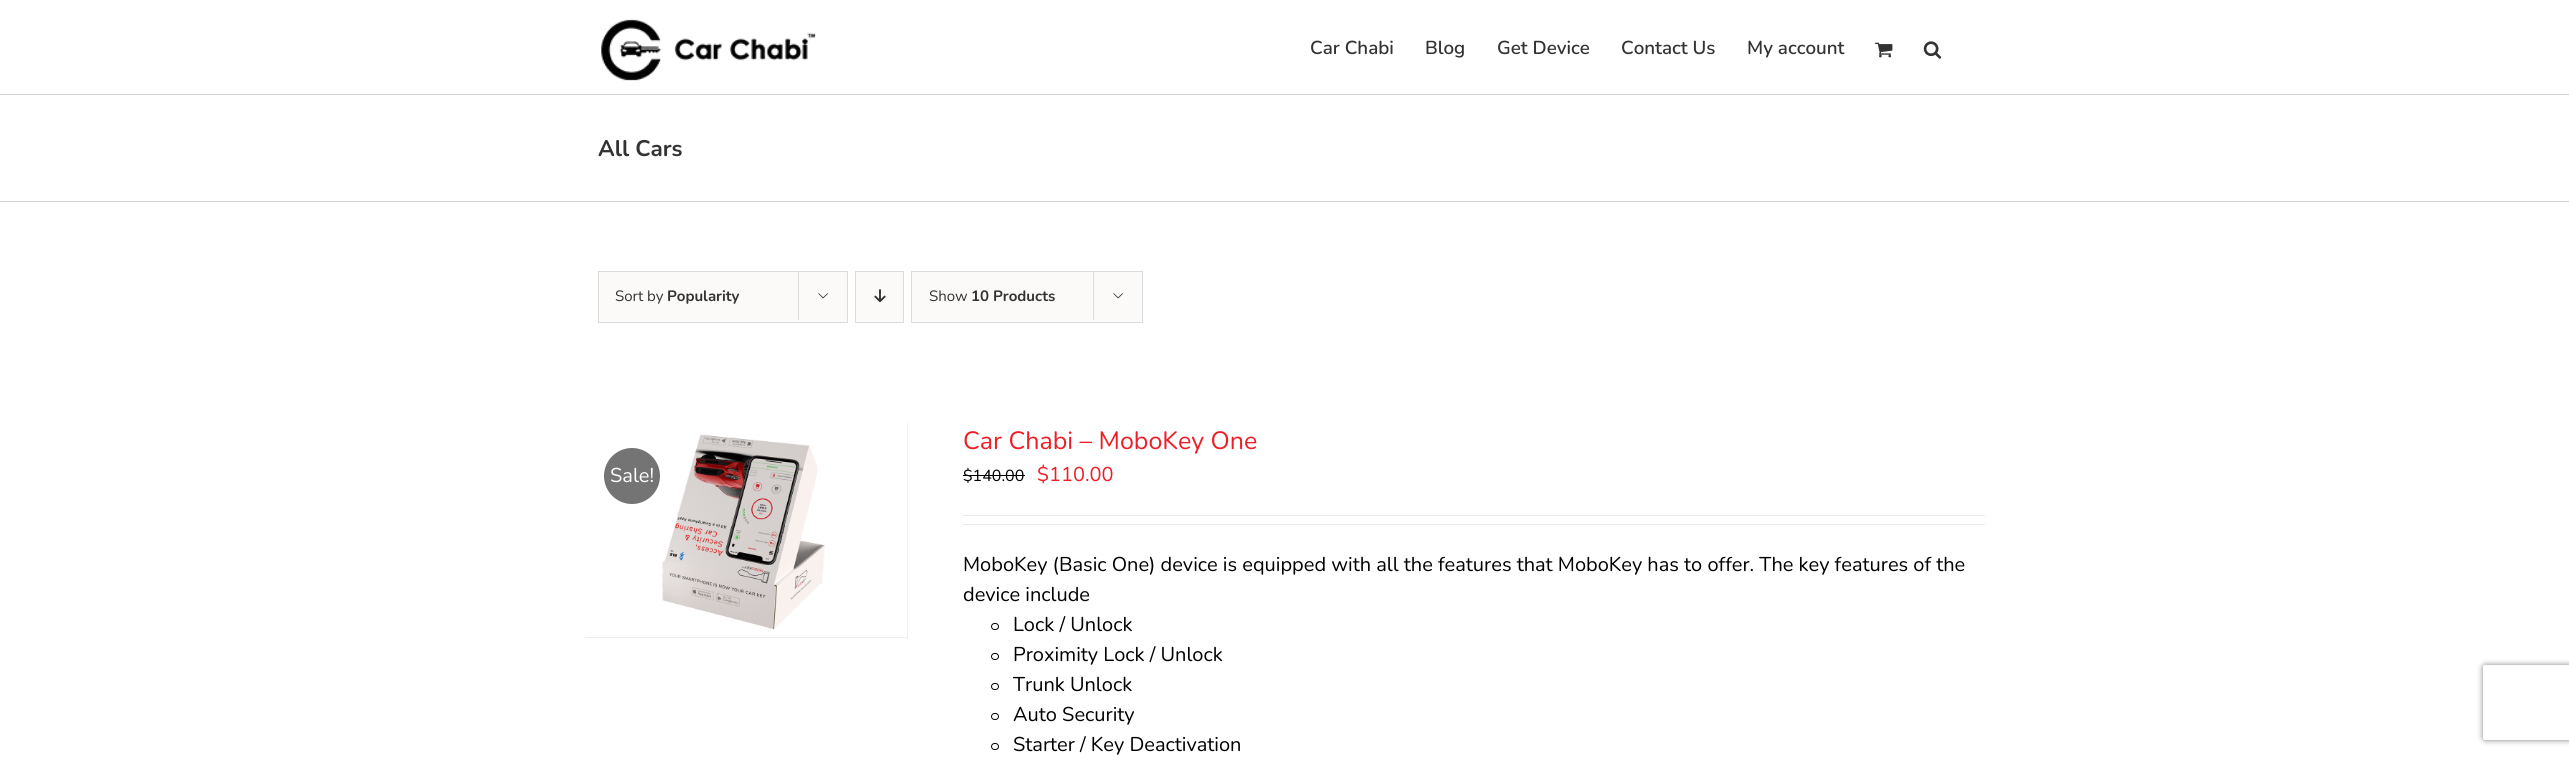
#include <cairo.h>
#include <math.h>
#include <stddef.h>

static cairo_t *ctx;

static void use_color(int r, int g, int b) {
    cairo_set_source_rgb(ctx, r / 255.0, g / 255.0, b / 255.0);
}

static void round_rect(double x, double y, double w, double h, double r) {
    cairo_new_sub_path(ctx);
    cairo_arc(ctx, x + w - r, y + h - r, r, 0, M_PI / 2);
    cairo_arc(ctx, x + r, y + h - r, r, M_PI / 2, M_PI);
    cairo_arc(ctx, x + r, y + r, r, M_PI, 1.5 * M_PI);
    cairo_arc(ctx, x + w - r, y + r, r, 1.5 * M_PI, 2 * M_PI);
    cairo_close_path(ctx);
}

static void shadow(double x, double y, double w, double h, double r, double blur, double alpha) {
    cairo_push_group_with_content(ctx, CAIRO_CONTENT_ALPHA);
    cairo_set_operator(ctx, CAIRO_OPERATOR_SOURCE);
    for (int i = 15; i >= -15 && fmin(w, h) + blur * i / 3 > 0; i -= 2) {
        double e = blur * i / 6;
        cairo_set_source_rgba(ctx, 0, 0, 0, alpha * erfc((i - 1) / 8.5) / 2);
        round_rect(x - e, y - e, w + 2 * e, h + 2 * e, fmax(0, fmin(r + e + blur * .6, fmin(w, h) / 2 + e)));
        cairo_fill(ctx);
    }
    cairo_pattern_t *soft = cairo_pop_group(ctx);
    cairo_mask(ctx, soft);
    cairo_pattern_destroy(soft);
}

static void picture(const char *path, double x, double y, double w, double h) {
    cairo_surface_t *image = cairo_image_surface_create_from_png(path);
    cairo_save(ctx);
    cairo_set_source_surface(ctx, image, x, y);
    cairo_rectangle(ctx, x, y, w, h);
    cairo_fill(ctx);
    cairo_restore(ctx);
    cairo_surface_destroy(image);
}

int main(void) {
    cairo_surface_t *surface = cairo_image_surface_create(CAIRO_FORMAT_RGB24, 2569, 757);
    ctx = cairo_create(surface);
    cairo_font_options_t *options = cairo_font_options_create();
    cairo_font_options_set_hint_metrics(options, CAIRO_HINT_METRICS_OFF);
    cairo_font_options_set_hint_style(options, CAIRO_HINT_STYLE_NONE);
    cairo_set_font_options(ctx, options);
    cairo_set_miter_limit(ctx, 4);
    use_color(255, 255, 255);
    cairo_paint(ctx);
    picture("img1.png", 601, 19, 215, 62);
    cairo_select_font_face(ctx, "Nunito SemiBold", CAIRO_FONT_SLANT_NORMAL, CAIRO_FONT_WEIGHT_NORMAL);
    cairo_set_font_size(ctx, 18.75);
    use_color(51, 51, 51);
    cairo_move_to(ctx, 1310, 54);
    cairo_show_text(ctx, "Car Chabi");
    cairo_move_to(ctx, 1425, 54);
    cairo_show_text(ctx, "Blog");
    cairo_move_to(ctx, 1497, 54);
    cairo_show_text(ctx, "Get Device");
    cairo_move_to(ctx, 1621, 54);
    cairo_show_text(ctx, "Contact Us");
    cairo_move_to(ctx, 1747, 54);
    cairo_show_text(ctx, "My account");
    picture("img2.png", 1875, 42, 18, 16);
    picture("img3.png", 1923, 41, 19, 18);
    use_color(210, 211, 212);
    cairo_rectangle(ctx, 0, 94, 2569, 1);
    cairo_fill(ctx);
    cairo_rectangle(ctx, 0, 201, 2569, 1);
    cairo_fill(ctx);
    cairo_select_font_face(ctx, "Nunito", CAIRO_FONT_SLANT_NORMAL, CAIRO_FONT_WEIGHT_BOLD);
    cairo_set_font_size(ctx, 22.5);
    use_color(51, 51, 51);
    cairo_move_to(ctx, 598, 156);
    cairo_show_text(ctx, "All Cars");
    use_color(251, 250, 249);
    cairo_rectangle(ctx, 598.5, 271.5, 249, 51);
    cairo_fill_preserve(ctx);
    use_color(219, 219, 219);
    cairo_set_line_width(ctx, 1);
    cairo_stroke(ctx);
    cairo_select_font_face(ctx, "Nunito", CAIRO_FONT_SLANT_NORMAL, CAIRO_FONT_WEIGHT_NORMAL);
    cairo_set_font_size(ctx, 15);
    use_color(51, 51, 51);
    cairo_move_to(ctx, 615, 301);
    cairo_show_text(ctx, "Sort by");
    cairo_select_font_face(ctx, "Nunito", CAIRO_FONT_SLANT_NORMAL, CAIRO_FONT_WEIGHT_BOLD);
    cairo_move_to(ctx, 667, 301);
    cairo_show_text(ctx, "Popularity");
    use_color(219, 219, 219);
    cairo_rectangle(ctx, 798, 271, 1, 49);
    cairo_fill(ctx);
    picture("img4.png", 818, 293, 10, 6);
    use_color(251, 250, 249);
    cairo_rectangle(ctx, 855.5, 271.5, 48, 51);
    cairo_fill_preserve(ctx);
    use_color(219, 219, 219);
    cairo_stroke(ctx);
    picture("img5.png", 874, 289, 12, 14);
    use_color(251, 250, 249);
    cairo_rectangle(ctx, 911.5, 271.5, 231, 51);
    cairo_fill_preserve(ctx);
    use_color(219, 219, 219);
    cairo_stroke(ctx);
    cairo_select_font_face(ctx, "Nunito", CAIRO_FONT_SLANT_NORMAL, CAIRO_FONT_WEIGHT_NORMAL);
    use_color(51, 51, 51);
    cairo_move_to(ctx, 929, 301);
    cairo_show_text(ctx, "Show");
    cairo_select_font_face(ctx, "Nunito", CAIRO_FONT_SLANT_NORMAL, CAIRO_FONT_WEIGHT_BOLD);
    cairo_move_to(ctx, 971, 301);
    cairo_show_text(ctx, "10 Products");
    use_color(219, 219, 219);
    cairo_rectangle(ctx, 1093, 271, 1, 49);
    cairo_fill(ctx);
    picture("img4.png", 1113, 293, 10, 6);
    use_color(224, 222, 222);
    cairo_rectangle(ctx, 585, 423, 323, 215);
    cairo_fill(ctx);
    picture("img6.png", 585, 423, 323, 215);
    use_color(116, 116, 116);
    cairo_arc(ctx, 632, 476, 28, 0, 2 * M_PI);
    cairo_fill(ctx);
    cairo_select_font_face(ctx, "Nunito", CAIRO_FONT_SLANT_NORMAL, CAIRO_FONT_WEIGHT_NORMAL);
    cairo_set_font_size(ctx, 20);
    use_color(255, 255, 255);
    cairo_move_to(ctx, 610, 482);
    cairo_show_text(ctx, "Sale!");
    cairo_set_font_size(ctx, 25);
    use_color(237, 30, 37);
    cairo_move_to(ctx, 963, 449);
    cairo_show_text(ctx, "Car Chabi – MoboKey One");
    cairo_set_font_size(ctx, 16);
    use_color(0, 0, 0);
    cairo_move_to(ctx, 963, 481);
    cairo_show_text(ctx, "$140.00");
    cairo_rectangle(ctx, 963, 475, 62, 1);
    cairo_fill(ctx);
    cairo_set_font_size(ctx, 20);
    use_color(237, 30, 37);
    cairo_move_to(ctx, 1037, 481);
    cairo_show_text(ctx, "$110.00");
    use_color(235, 234, 234);
    cairo_rectangle(ctx, 963, 515, 1022, 1);
    cairo_fill(ctx);
    cairo_rectangle(ctx, 963, 524, 1022, 1);
    cairo_fill(ctx);
    use_color(0, 0, 0);
    cairo_move_to(ctx, 963, 571);
    cairo_show_text(ctx, "MoboKey (Basic One) device is equipped with all the features that MoboKey has to offer. The key features of the");
    cairo_move_to(ctx, 963, 601);
    cairo_show_text(ctx, "device include");
    round_rect(991.5, 623.5, 7, 6, 3);
    cairo_stroke(ctx);
    cairo_move_to(ctx, 1013, 631);
    cairo_show_text(ctx, "Lock / Unlock");
    round_rect(991.5, 653.5, 7, 6, 3);
    cairo_stroke(ctx);
    cairo_move_to(ctx, 1013, 661);
    cairo_show_text(ctx, "Proximity Lock / Unlock");
    round_rect(991.5, 683.5, 7, 6, 3);
    cairo_stroke(ctx);
    cairo_move_to(ctx, 1013, 691);
    cairo_show_text(ctx, "Trunk Unlock");
    round_rect(991.5, 713.5, 7, 6, 3);
    cairo_stroke(ctx);
    cairo_move_to(ctx, 1013, 721);
    cairo_show_text(ctx, "Auto Security");
    round_rect(991.5, 743.5, 7, 6, 3);
    cairo_stroke(ctx);
    cairo_move_to(ctx, 1013, 751);
    cairo_show_text(ctx, "Starter / Key Deactivation");
    cairo_save(ctx);
    cairo_set_fill_rule(ctx, CAIRO_FILL_RULE_EVEN_ODD);
    cairo_new_path(ctx);
    cairo_move_to(ctx, 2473, 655);
    cairo_line_to(ctx, 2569, 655);
    cairo_line_to(ctx, 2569, 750);
    cairo_line_to(ctx, 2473, 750);
    cairo_close_path(ctx);
    cairo_move_to(ctx, 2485.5, 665);
    cairo_line_to(ctx, 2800.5, 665);
    cairo_curve_to(ctx, 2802, 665, 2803, 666, 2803, 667.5);
    cairo_line_to(ctx, 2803, 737.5);
    cairo_curve_to(ctx, 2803, 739, 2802, 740, 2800.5, 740);
    cairo_line_to(ctx, 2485.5, 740);
    cairo_curve_to(ctx, 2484, 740, 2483, 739, 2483, 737.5);
    cairo_line_to(ctx, 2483, 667.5);
    cairo_curve_to(ctx, 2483, 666, 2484, 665, 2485.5, 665);
    cairo_close_path(ctx);
    cairo_clip(ctx);
    use_color(128, 128, 128);
    shadow(2483, 665, 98, 75, 2.5, 3, 1);
    cairo_restore(ctx);
    cairo_surface_write_to_png(surface, "result.png");
    cairo_font_options_destroy(options);
    cairo_destroy(ctx);
    cairo_surface_destroy(surface);
    return 0;
}
